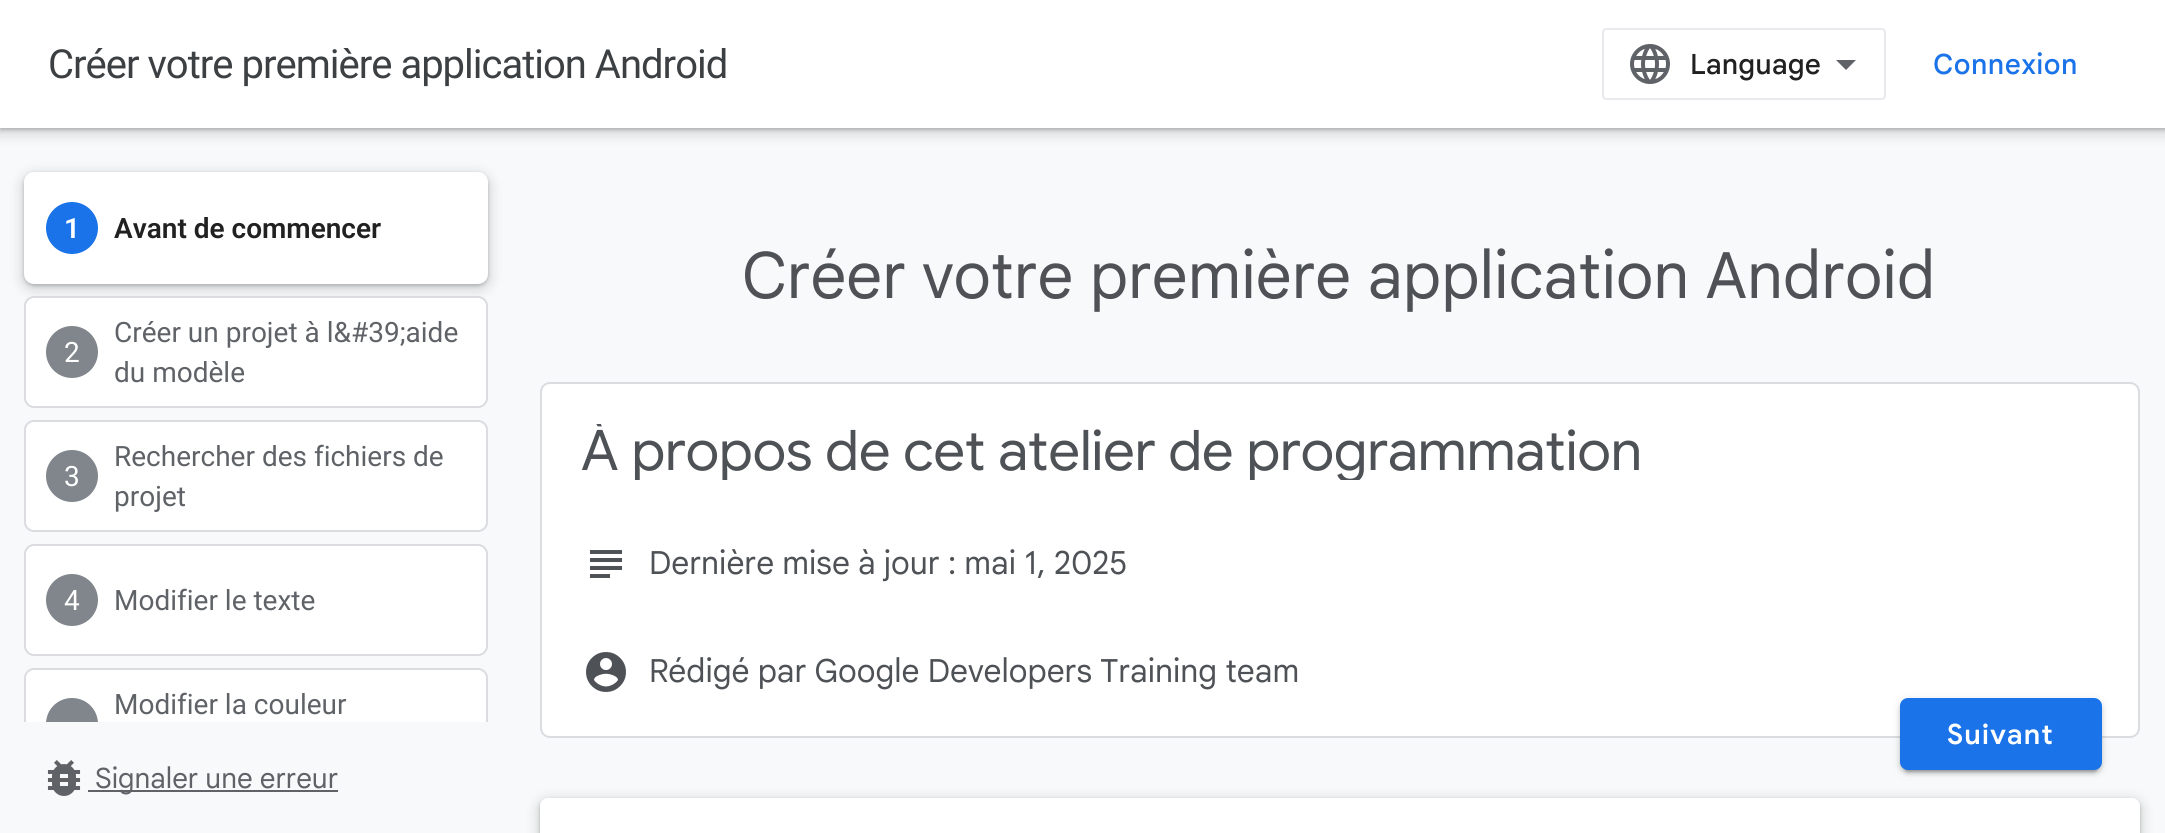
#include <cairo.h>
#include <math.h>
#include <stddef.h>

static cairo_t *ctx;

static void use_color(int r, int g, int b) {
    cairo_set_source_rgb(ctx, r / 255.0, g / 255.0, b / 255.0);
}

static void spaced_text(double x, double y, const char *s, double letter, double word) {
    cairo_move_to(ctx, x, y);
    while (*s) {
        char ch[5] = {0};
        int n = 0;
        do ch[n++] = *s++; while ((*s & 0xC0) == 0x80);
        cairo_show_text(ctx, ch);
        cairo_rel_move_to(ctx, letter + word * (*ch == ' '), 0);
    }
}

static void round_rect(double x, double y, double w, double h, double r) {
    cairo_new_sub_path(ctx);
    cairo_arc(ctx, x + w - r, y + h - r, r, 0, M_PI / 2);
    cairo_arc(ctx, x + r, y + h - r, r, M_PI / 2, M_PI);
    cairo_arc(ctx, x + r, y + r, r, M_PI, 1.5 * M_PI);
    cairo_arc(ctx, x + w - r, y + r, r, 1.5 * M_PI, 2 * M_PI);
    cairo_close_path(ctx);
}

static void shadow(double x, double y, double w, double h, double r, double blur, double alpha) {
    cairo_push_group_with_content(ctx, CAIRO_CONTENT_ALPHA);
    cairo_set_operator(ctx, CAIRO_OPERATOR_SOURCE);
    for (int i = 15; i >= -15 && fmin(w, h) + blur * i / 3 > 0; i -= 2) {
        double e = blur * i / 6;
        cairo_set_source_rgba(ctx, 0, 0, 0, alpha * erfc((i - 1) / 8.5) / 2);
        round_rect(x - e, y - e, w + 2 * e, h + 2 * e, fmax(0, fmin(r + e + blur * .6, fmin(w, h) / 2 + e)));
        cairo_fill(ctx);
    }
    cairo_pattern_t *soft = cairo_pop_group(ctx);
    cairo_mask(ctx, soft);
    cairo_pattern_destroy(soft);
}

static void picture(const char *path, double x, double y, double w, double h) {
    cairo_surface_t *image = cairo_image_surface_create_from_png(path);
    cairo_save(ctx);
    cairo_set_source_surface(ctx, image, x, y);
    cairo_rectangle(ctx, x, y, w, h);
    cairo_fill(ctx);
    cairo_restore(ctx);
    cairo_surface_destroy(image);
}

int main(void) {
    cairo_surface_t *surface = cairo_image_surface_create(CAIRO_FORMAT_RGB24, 2165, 833);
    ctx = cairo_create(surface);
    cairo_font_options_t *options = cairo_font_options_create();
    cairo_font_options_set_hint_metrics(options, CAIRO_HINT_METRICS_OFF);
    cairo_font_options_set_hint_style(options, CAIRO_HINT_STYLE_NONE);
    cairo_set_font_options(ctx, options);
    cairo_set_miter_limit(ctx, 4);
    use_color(248, 249, 250);
    cairo_paint(ctx);
    use_color(60, 64, 67);
    shadow(-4, 0, 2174, 136, 0, 6, 0.15);
    shadow(0, 2, 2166, 128, 0, 2, 0.3);
    use_color(255, 255, 255);
    cairo_rectangle(ctx, 0, 0, 2165, 128);
    cairo_fill(ctx);
    cairo_select_font_face(ctx, "Roboto", CAIRO_FONT_SLANT_NORMAL, CAIRO_FONT_WEIGHT_NORMAL);
    cairo_set_font_size(ctx, 40);
    use_color(60, 64, 67);
    spaced_text(48, 78, "Créer votre première application Android", -1, 0);
    round_rect(1603, 29, 282, 70, 3);
    use_color(232, 234, 237);
    cairo_stroke(ctx);
    picture("img1.png", 1630, 44, 40, 40);
    cairo_select_font_face(ctx, "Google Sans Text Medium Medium", CAIRO_FONT_SLANT_NORMAL, CAIRO_FONT_WEIGHT_NORMAL);
    cairo_set_font_size(ctx, 28);
    use_color(33, 33, 33);
    cairo_move_to(ctx, 1690, 74);
    cairo_show_text(ctx, "Language");
    use_color(95, 99, 104);
    cairo_new_path(ctx);
    cairo_move_to(ctx, 1846, 70);
    cairo_line_to(ctx, 1836, 60);
    cairo_line_to(ctx, 1856, 60);
    cairo_close_path(ctx);
    cairo_fill(ctx);
    use_color(26, 115, 232);
    spaced_text(1933, 74, "Connexion", 0.5, 0);
    use_color(60, 64, 67);
    shadow(20, 172, 472, 120, 14, 6, 0.15);
    shadow(24, 174, 464, 112, 10, 2, 0.3);
    use_color(255, 255, 255);
    round_rect(25, 173, 462, 110, 9);
    cairo_fill_preserve(ctx);
    cairo_stroke(ctx);
    use_color(26, 115, 232);
    cairo_arc(ctx, 72, 228, 26, 0, 2 * M_PI);
    cairo_fill(ctx);
    cairo_select_font_face(ctx, "Roboto SemiBold", CAIRO_FONT_SLANT_NORMAL, CAIRO_FONT_WEIGHT_NORMAL);
    use_color(255, 255, 255);
    cairo_move_to(ctx, 64, 238);
    cairo_show_text(ctx, "1");
    use_color(33, 33, 33);
    cairo_move_to(ctx, 114, 238);
    cairo_show_text(ctx, "Avant de commencer");
    use_color(255, 255, 255);
    round_rect(25, 297, 462, 110, 9);
    cairo_fill_preserve(ctx);
    use_color(218, 220, 224);
    cairo_stroke(ctx);
    use_color(128, 134, 139);
    cairo_arc(ctx, 72, 352, 26, 0, 2 * M_PI);
    cairo_fill(ctx);
    cairo_select_font_face(ctx, "Roboto", CAIRO_FONT_SLANT_NORMAL, CAIRO_FONT_WEIGHT_NORMAL);
    use_color(255, 255, 255);
    cairo_move_to(ctx, 64, 362);
    cairo_show_text(ctx, "2");
    use_color(95, 99, 104);
    cairo_move_to(ctx, 114, 342);
    cairo_show_text(ctx, "Créer un projet à l&#39;aide");
    cairo_move_to(ctx, 114, 382);
    cairo_show_text(ctx, "du modèle");
    use_color(255, 255, 255);
    round_rect(25, 421, 462, 110, 9);
    cairo_fill_preserve(ctx);
    use_color(218, 220, 224);
    cairo_stroke(ctx);
    use_color(128, 134, 139);
    cairo_arc(ctx, 72, 476, 26, 0, 2 * M_PI);
    cairo_fill(ctx);
    use_color(255, 255, 255);
    cairo_move_to(ctx, 64, 486);
    cairo_show_text(ctx, "3");
    use_color(95, 99, 104);
    cairo_move_to(ctx, 114, 466);
    cairo_show_text(ctx, "Rechercher des fichiers de");
    cairo_move_to(ctx, 114, 506);
    cairo_show_text(ctx, "projet");
    use_color(255, 255, 255);
    round_rect(25, 545, 462, 110, 9);
    cairo_fill_preserve(ctx);
    use_color(218, 220, 224);
    cairo_stroke(ctx);
    use_color(128, 134, 139);
    cairo_arc(ctx, 72, 600, 26, 0, 2 * M_PI);
    cairo_fill(ctx);
    use_color(255, 255, 255);
    cairo_move_to(ctx, 64, 610);
    cairo_show_text(ctx, "4");
    use_color(95, 99, 104);
    cairo_move_to(ctx, 114, 610);
    cairo_show_text(ctx, "Modifier le texte");
    use_color(255, 255, 255);
    cairo_new_path(ctx);
    cairo_move_to(ctx, 34, 668);
    cairo_line_to(ctx, 478, 668);
    cairo_curve_to(ctx, 483.5, 668, 488, 672.5, 488, 678);
    cairo_line_to(ctx, 488, 722);
    cairo_line_to(ctx, 24, 722);
    cairo_line_to(ctx, 24, 678);
    cairo_curve_to(ctx, 24, 672.5, 28.5, 668, 34, 668);
    cairo_close_path(ctx);
    cairo_fill(ctx);
    picture("img4.png", 47, 760, 34, 36);
    use_color(95, 99, 104);
    cairo_rectangle(ctx, 88, 790, 250, 2);
    cairo_fill(ctx);
    cairo_select_font_face(ctx, "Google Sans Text", CAIRO_FONT_SLANT_NORMAL, CAIRO_FONT_WEIGHT_NORMAL);
    cairo_move_to(ctx, 95, 788);
    cairo_show_text(ctx, "Signaler une erreur");
    cairo_save(ctx);
    cairo_rectangle(ctx, 0, 128, 512, 594);
    cairo_clip(ctx);
    round_rect(25, 669, 462, 110, 9);
    use_color(218, 220, 224);
    cairo_stroke(ctx);
    cairo_restore(ctx);
    use_color(128, 134, 139);
    cairo_new_path(ctx);
    cairo_move_to(ctx, 72, 698);
    cairo_curve_to(ctx, 86.5, 698, 98, 709.5, 98, 724);
    cairo_line_to(ctx, 98, 722);
    cairo_line_to(ctx, 46, 722);
    cairo_line_to(ctx, 46, 724);
    cairo_curve_to(ctx, 46, 709.5, 57.5, 698, 72, 698);
    cairo_close_path(ctx);
    cairo_fill(ctx);
    cairo_select_font_face(ctx, "Roboto", CAIRO_FONT_SLANT_NORMAL, CAIRO_FONT_WEIGHT_NORMAL);
    use_color(95, 99, 104);
    cairo_move_to(ctx, 114, 714);
    cairo_show_text(ctx, "Modifier la couleur");
    cairo_select_font_face(ctx, "Google Sans Text", CAIRO_FONT_SLANT_NORMAL, CAIRO_FONT_WEIGHT_NORMAL);
    cairo_set_font_size(ctx, 64);
    use_color(78, 82, 86);
    cairo_move_to(ctx, 742, 298);
    cairo_show_text(ctx, "Créer votre première application Android");
    use_color(255, 255, 255);
    round_rect(541, 383, 1598, 354, 9);
    cairo_fill_preserve(ctx);
    use_color(218, 220, 224);
    cairo_stroke(ctx);
    cairo_save(ctx);
    cairo_rectangle(ctx, 582, 424, 1516, 56);
    cairo_clip(ctx);
    cairo_select_font_face(ctx, "Google Sans", CAIRO_FONT_SLANT_NORMAL, CAIRO_FONT_WEIGHT_NORMAL);
    cairo_set_font_size(ctx, 56);
    use_color(78, 82, 86);
    cairo_move_to(ctx, 581, 470);
    cairo_show_text(ctx, "À propos de cet atelier de programmation");
    cairo_restore(ctx);
    picture("img2.png", 589, 550, 34, 28);
    cairo_set_font_size(ctx, 32);
    use_color(78, 82, 86);
    cairo_move_to(ctx, 649, 574);
    cairo_show_text(ctx, "Dernière mise à jour : mai 1, 2025");
    picture("img3.png", 586, 652, 40, 40);
    cairo_move_to(ctx, 649, 682);
    cairo_show_text(ctx, "Rédigé par Google Developers Training team");
    use_color(60, 64, 67);
    shadow(536, 798, 1608, 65, 12, 6, 0.15);
    shadow(540, 800, 1600, 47, 8, 2, 0.3);
    use_color(255, 255, 255);
    cairo_new_path(ctx);
    cairo_move_to(ctx, 548, 798);
    cairo_line_to(ctx, 2132, 798);
    cairo_curve_to(ctx, 2136.5, 798, 2140, 801.5, 2140, 806);
    cairo_line_to(ctx, 2140, 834);
    cairo_line_to(ctx, 540, 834);
    cairo_line_to(ctx, 540, 806);
    cairo_curve_to(ctx, 540, 801.5, 543.5, 798, 548, 798);
    cairo_close_path(ctx);
    cairo_fill(ctx);
    use_color(0, 0, 0);
    shadow(1904, 708, 194, 64, 4, 1, 0.2);
    shadow(1900, 700, 202, 72, 8, 5, 0.12);
    shadow(1900, 702, 202, 72, 8, 2, 0.14);
    use_color(26, 115, 232);
    round_rect(1900, 698, 202, 72, 8);
    cairo_fill(ctx);
    cairo_select_font_face(ctx, "Google Sans SemiBold", CAIRO_FONT_SLANT_NORMAL, CAIRO_FONT_WEIGHT_NORMAL);
    cairo_set_font_size(ctx, 28);
    use_color(255, 255, 255);
    spaced_text(1947, 744, "Suivant", 1.25, 0);
    cairo_surface_write_to_png(surface, "result.png");
    cairo_font_options_destroy(options);
    cairo_destroy(ctx);
    cairo_surface_destroy(surface);
    return 0;
}
